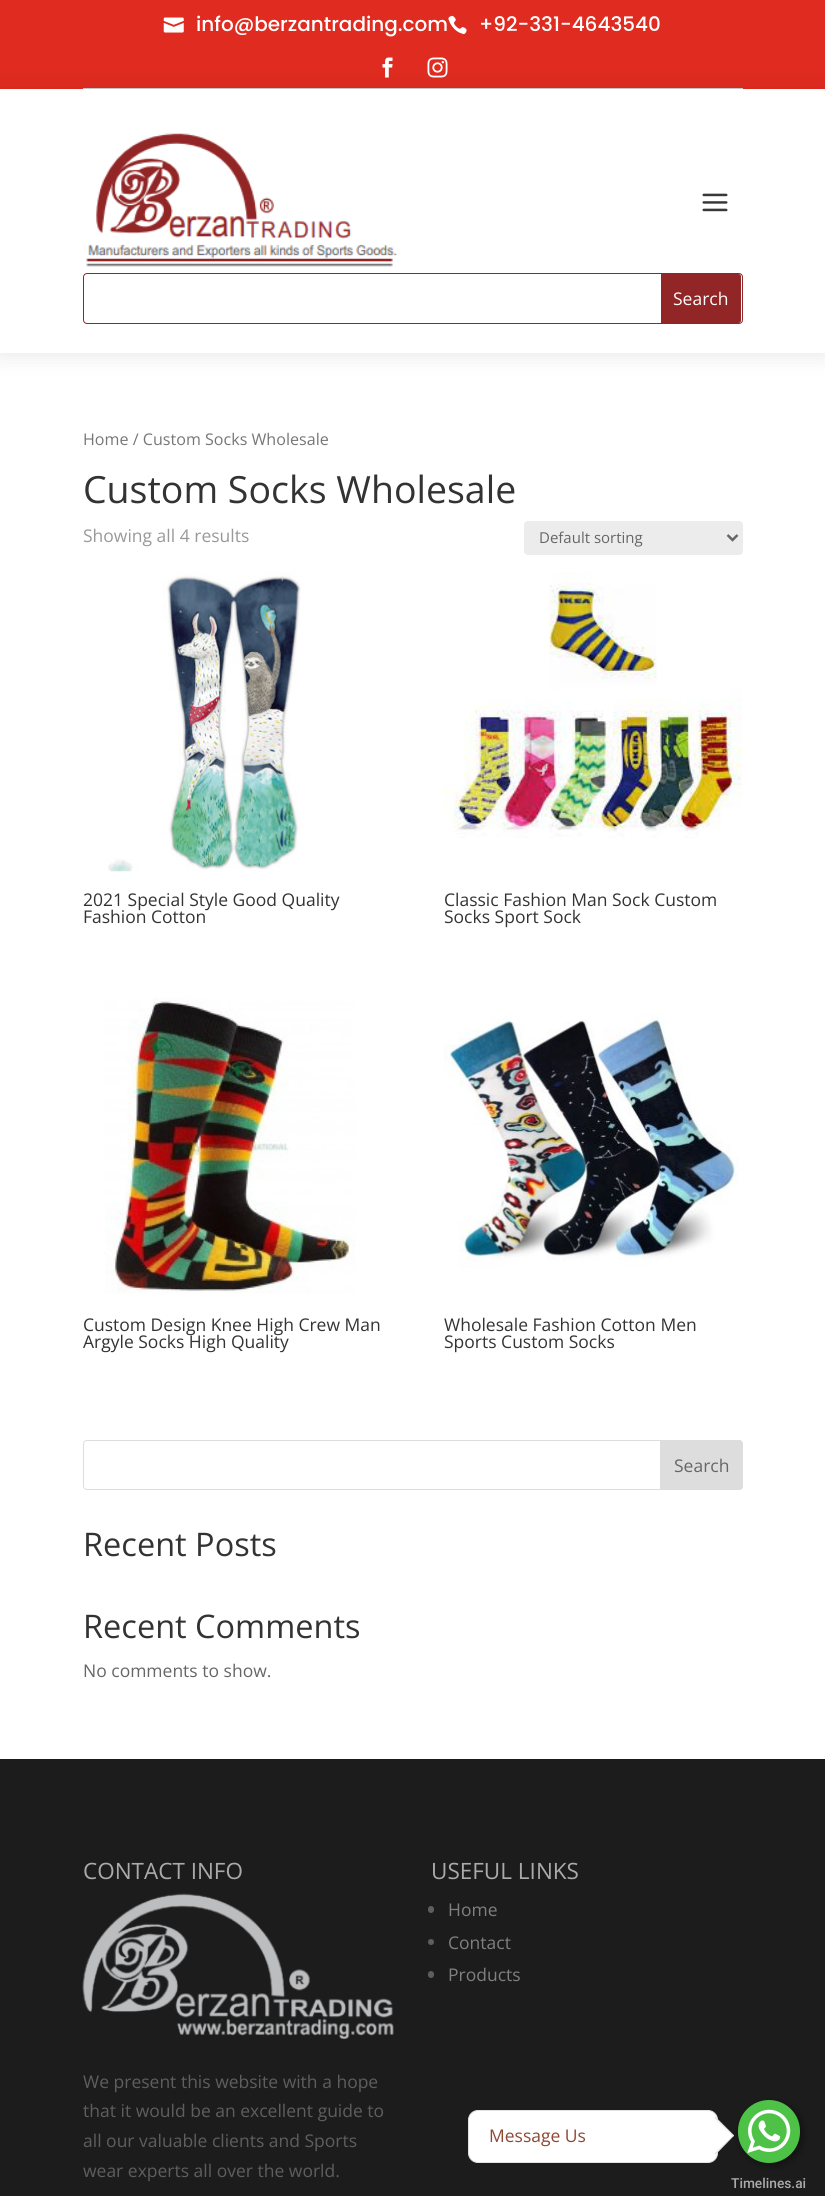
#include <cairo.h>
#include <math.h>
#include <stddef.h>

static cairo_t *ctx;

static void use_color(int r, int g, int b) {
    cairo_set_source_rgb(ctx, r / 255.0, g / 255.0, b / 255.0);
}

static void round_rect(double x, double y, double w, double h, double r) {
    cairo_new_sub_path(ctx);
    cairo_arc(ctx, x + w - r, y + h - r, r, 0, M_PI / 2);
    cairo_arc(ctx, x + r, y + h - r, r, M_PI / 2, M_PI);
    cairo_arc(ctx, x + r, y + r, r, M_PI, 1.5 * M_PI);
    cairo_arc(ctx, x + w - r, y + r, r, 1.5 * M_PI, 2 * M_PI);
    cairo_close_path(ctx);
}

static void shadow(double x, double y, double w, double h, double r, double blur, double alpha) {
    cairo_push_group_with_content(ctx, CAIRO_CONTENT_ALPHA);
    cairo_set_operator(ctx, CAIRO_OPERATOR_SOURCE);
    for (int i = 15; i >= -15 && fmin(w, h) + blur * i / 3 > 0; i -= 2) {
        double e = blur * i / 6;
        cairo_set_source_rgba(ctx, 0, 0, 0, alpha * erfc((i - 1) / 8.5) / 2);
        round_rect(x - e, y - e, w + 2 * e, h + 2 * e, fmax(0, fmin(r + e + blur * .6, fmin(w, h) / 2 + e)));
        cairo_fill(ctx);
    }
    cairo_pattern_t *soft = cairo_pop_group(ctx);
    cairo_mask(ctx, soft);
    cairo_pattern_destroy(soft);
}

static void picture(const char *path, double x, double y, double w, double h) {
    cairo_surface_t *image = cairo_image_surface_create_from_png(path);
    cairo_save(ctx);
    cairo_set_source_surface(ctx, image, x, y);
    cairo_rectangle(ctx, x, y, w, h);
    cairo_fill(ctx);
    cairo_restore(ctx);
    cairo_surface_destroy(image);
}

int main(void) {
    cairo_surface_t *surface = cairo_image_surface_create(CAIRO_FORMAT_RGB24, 825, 2196);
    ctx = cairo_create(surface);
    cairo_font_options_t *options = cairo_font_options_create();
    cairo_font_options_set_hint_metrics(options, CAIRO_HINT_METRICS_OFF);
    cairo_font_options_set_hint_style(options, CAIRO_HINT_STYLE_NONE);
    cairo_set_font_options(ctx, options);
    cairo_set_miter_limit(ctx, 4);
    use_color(255, 255, 255);
    cairo_paint(ctx);
    use_color(224, 43, 32);
    cairo_rectangle(ctx, 0, 0, 825, 89);
    cairo_fill(ctx);
    use_color(204, 204, 204);
    cairo_rectangle(ctx, 83, 88, 660, 1);
    cairo_fill(ctx);
    picture("img1.png", 163, 17, 21, 16);
    cairo_select_font_face(ctx, "Poppins Medium", CAIRO_FONT_SLANT_NORMAL, CAIRO_FONT_WEIGHT_NORMAL);
    cairo_set_font_size(ctx, 20);
    use_color(255, 255, 255);
    cairo_move_to(ctx, 196, 31);
    cairo_show_text(ctx, "info@berzantrading.com");
    picture("img2.png", 448, 15, 19, 20);
    cairo_move_to(ctx, 479, 31);
    cairo_show_text(ctx, "+92-331-4643540");
    picture("img3.png", 382, 57, 11, 21);
    picture("img4.png", 427, 57, 21, 21);
    use_color(0, 0, 0);
    shadow(0, 91, 825, 264, 0, 11, 0.1);
    use_color(255, 255, 255);
    cairo_rectangle(ctx, 0, 89, 825, 264);
    cairo_fill(ctx);
    picture("img5.png", 86, 133, 311, 134);
    picture("img6.png", 702, 193, 26, 19);
    round_rect(83.5, 273.5, 659, 50, 3.5);
    use_color(146, 38, 38);
    cairo_set_line_width(ctx, 1);
    cairo_stroke(ctx);
    cairo_new_path(ctx);
    cairo_move_to(ctx, 661, 274);
    cairo_line_to(ctx, 738.5, 274);
    cairo_curve_to(ctx, 740, 274, 741, 275, 741, 276.5);
    cairo_line_to(ctx, 741, 320.5);
    cairo_curve_to(ctx, 741, 322, 740, 323, 738.5, 323);
    cairo_line_to(ctx, 661, 323);
    cairo_close_path(ctx);
    cairo_fill(ctx);
    cairo_select_font_face(ctx, "Open Sans", CAIRO_FONT_SLANT_NORMAL, CAIRO_FONT_WEIGHT_NORMAL);
    cairo_set_font_size(ctx, 17.5);
    use_color(255, 255, 255);
    cairo_move_to(ctx, 673, 305);
    cairo_show_text(ctx, "Search");
    cairo_set_font_size(ctx, 16.1);
    use_color(118, 118, 118);
    cairo_move_to(ctx, 83, 445);
    cairo_show_text(ctx, "Home / Custom Socks Wholesale");
    cairo_set_font_size(ctx, 37.5);
    use_color(51, 51, 51);
    cairo_move_to(ctx, 83, 503);
    cairo_show_text(ctx, "Custom Socks Wholesale");
    cairo_set_font_size(ctx, 17.5);
    use_color(153, 153, 153);
    cairo_move_to(ctx, 83, 542);
    cairo_show_text(ctx, "Showing all 4 results");
    use_color(236, 236, 236);
    round_rect(524, 521, 219, 34, 4);
    cairo_fill(ctx);
    cairo_new_path(ctx);
    cairo_move_to(ctx, 727.5, 535);
    cairo_line_to(ctx, 732.5, 540);
    cairo_line_to(ctx, 737.5, 535);
    use_color(102, 102, 102);
    cairo_set_line_width(ctx, 2.5);
    cairo_stroke(ctx);
    cairo_set_font_size(ctx, 15);
    cairo_move_to(ctx, 539, 543);
    cairo_show_text(ctx, "Default sorting");
    picture("img7.png", 108, 572, 193, 300);
    cairo_set_font_size(ctx, 17.5);
    use_color(51, 51, 51);
    cairo_move_to(ctx, 83, 906);
    cairo_show_text(ctx, "2021 Special Style Good Quality");
    cairo_move_to(ctx, 83, 923);
    cairo_show_text(ctx, "Fashion Cotton");
    picture("img8.png", 444, 572, 299, 266);
    cairo_move_to(ctx, 444, 906);
    cairo_show_text(ctx, "Classic Fashion Man Sock Custom");
    cairo_move_to(ctx, 444, 923);
    cairo_show_text(ctx, "Socks Sport Sock");
    picture("img9.png", 105, 997, 251, 297);
    cairo_move_to(ctx, 83, 1331);
    cairo_show_text(ctx, "Custom Design Knee High Crew Man");
    cairo_move_to(ctx, 83, 1348);
    cairo_show_text(ctx, "Argyle Socks High Quality");
    picture("img10.png", 443, 1014, 296, 254);
    cairo_move_to(ctx, 444, 1331);
    cairo_show_text(ctx, "Wholesale Fashion Cotton Men");
    cairo_move_to(ctx, 444, 1348);
    cairo_show_text(ctx, "Sports Custom Socks");
    round_rect(83.5, 1440.5, 659, 49, 3.5);
    use_color(221, 221, 221);
    cairo_set_line_width(ctx, 1);
    cairo_stroke(ctx);
    cairo_new_path(ctx);
    cairo_move_to(ctx, 660.5, 1440.5);
    cairo_line_to(ctx, 739, 1440.5);
    cairo_curve_to(ctx, 741, 1440.5, 742.5, 1442, 742.5, 1444);
    cairo_line_to(ctx, 742.5, 1486);
    cairo_curve_to(ctx, 742.5, 1488, 741, 1489.5, 739, 1489.5);
    cairo_line_to(ctx, 660.5, 1489.5);
    cairo_close_path(ctx);
    cairo_fill_preserve(ctx);
    cairo_stroke(ctx);
    use_color(102, 102, 102);
    cairo_move_to(ctx, 674, 1472);
    cairo_show_text(ctx, "Search");
    cairo_set_font_size(ctx, 32.5);
    use_color(51, 51, 51);
    cairo_move_to(ctx, 83, 1556);
    cairo_show_text(ctx, "Recent Posts");
    cairo_move_to(ctx, 83, 1638);
    cairo_show_text(ctx, "Recent Comments");
    cairo_set_font_size(ctx, 17.5);
    use_color(102, 102, 102);
    cairo_move_to(ctx, 83, 1677);
    cairo_show_text(ctx, "No comments to show.");
    use_color(28, 28, 28);
    cairo_rectangle(ctx, 0, 1759, 825, 437);
    cairo_fill(ctx);
    cairo_set_font_size(ctx, 22.5);
    use_color(170, 170, 170);
    cairo_move_to(ctx, 83, 1879);
    cairo_show_text(ctx, "CONTACT INFO");
    picture("img11.png", 82, 1893, 312, 147);
    cairo_set_font_size(ctx, 17.5);
    use_color(94, 94, 94);
    cairo_move_to(ctx, 83, 2088);
    cairo_show_text(ctx, "We present this website with a hope");
    cairo_move_to(ctx, 83, 2117);
    cairo_show_text(ctx, "that it would be an excellent guide to");
    cairo_move_to(ctx, 83, 2147);
    cairo_show_text(ctx, "all our valuable clients and Sports");
    cairo_move_to(ctx, 83, 2177);
    cairo_show_text(ctx, "wear experts all over the world.");
    cairo_set_font_size(ctx, 22.5);
    use_color(170, 170, 170);
    cairo_move_to(ctx, 431, 1879);
    cairo_show_text(ctx, "USEFUL LINKS");
    use_color(94, 94, 94);
    round_rect(428, 1906, 6, 7, 3);
    cairo_fill(ctx);
    cairo_set_font_size(ctx, 17.5);
    use_color(128, 128, 128);
    cairo_move_to(ctx, 448, 1916);
    cairo_show_text(ctx, "Home");
    use_color(94, 94, 94);
    cairo_new_path(ctx);
    cairo_arc(ctx, 431, 1942, 3, 0, 2 * M_PI);
    cairo_fill(ctx);
    use_color(128, 128, 128);
    cairo_move_to(ctx, 448, 1949);
    cairo_show_text(ctx, "Contact");
    use_color(94, 94, 94);
    round_rect(428, 1971, 6, 7, 3);
    cairo_fill(ctx);
    use_color(128, 128, 128);
    cairo_move_to(ctx, 448, 1981);
    cairo_show_text(ctx, "Products");
    use_color(255, 255, 255);
    round_rect(468.5, 2110.5, 249, 52, 9.5);
    cairo_fill_preserve(ctx);
    use_color(226, 226, 226);
    cairo_stroke(ctx);
    use_color(142, 71, 51);
    cairo_move_to(ctx, 489, 2142);
    cairo_show_text(ctx, "Message Us");
    use_color(0, 0, 0);
    shadow(740, 2103, 63, 62, 31, 4, 0.4);
    use_color(255, 255, 255);
    cairo_new_path(ctx);
    cairo_move_to(ctx, 697, 2135.5);
    cairo_line_to(ctx, 715.5, 2117);
    cairo_line_to(ctx, 734, 2135.5);
    cairo_line_to(ctx, 715.5, 2154.5);
    cairo_close_path(ctx);
    cairo_fill(ctx);
    use_color(226, 226, 226);
    cairo_new_path(ctx);
    cairo_move_to(ctx, 714.5, 2118);
    cairo_line_to(ctx, 715.5, 2117);
    cairo_line_to(ctx, 734, 2135.5);
    cairo_line_to(ctx, 733.5, 2136.5);
    cairo_close_path(ctx);
    cairo_fill(ctx);
    cairo_new_path(ctx);
    cairo_move_to(ctx, 714.5, 2153.5);
    cairo_line_to(ctx, 733.5, 2135);
    cairo_line_to(ctx, 734, 2135.5);
    cairo_line_to(ctx, 715.5, 2154.5);
    cairo_close_path(ctx);
    cairo_fill(ctx);
    use_color(77, 194, 71);
    round_rect(738, 2100, 62, 63, 31);
    cairo_fill(ctx);
    picture("img12.png", 747, 2109, 44, 44);
    cairo_select_font_face(ctx, "Roboto Medium", CAIRO_FONT_SLANT_NORMAL, CAIRO_FONT_WEIGHT_NORMAL);
    cairo_set_font_size(ctx, 13.75);
    use_color(170, 170, 170);
    cairo_move_to(ctx, 731, 2188);
    cairo_show_text(ctx, "Timelines.ai");
    cairo_surface_write_to_png(surface, "result.png");
    cairo_font_options_destroy(options);
    cairo_destroy(ctx);
    cairo_surface_destroy(surface);
    return 0;
}
